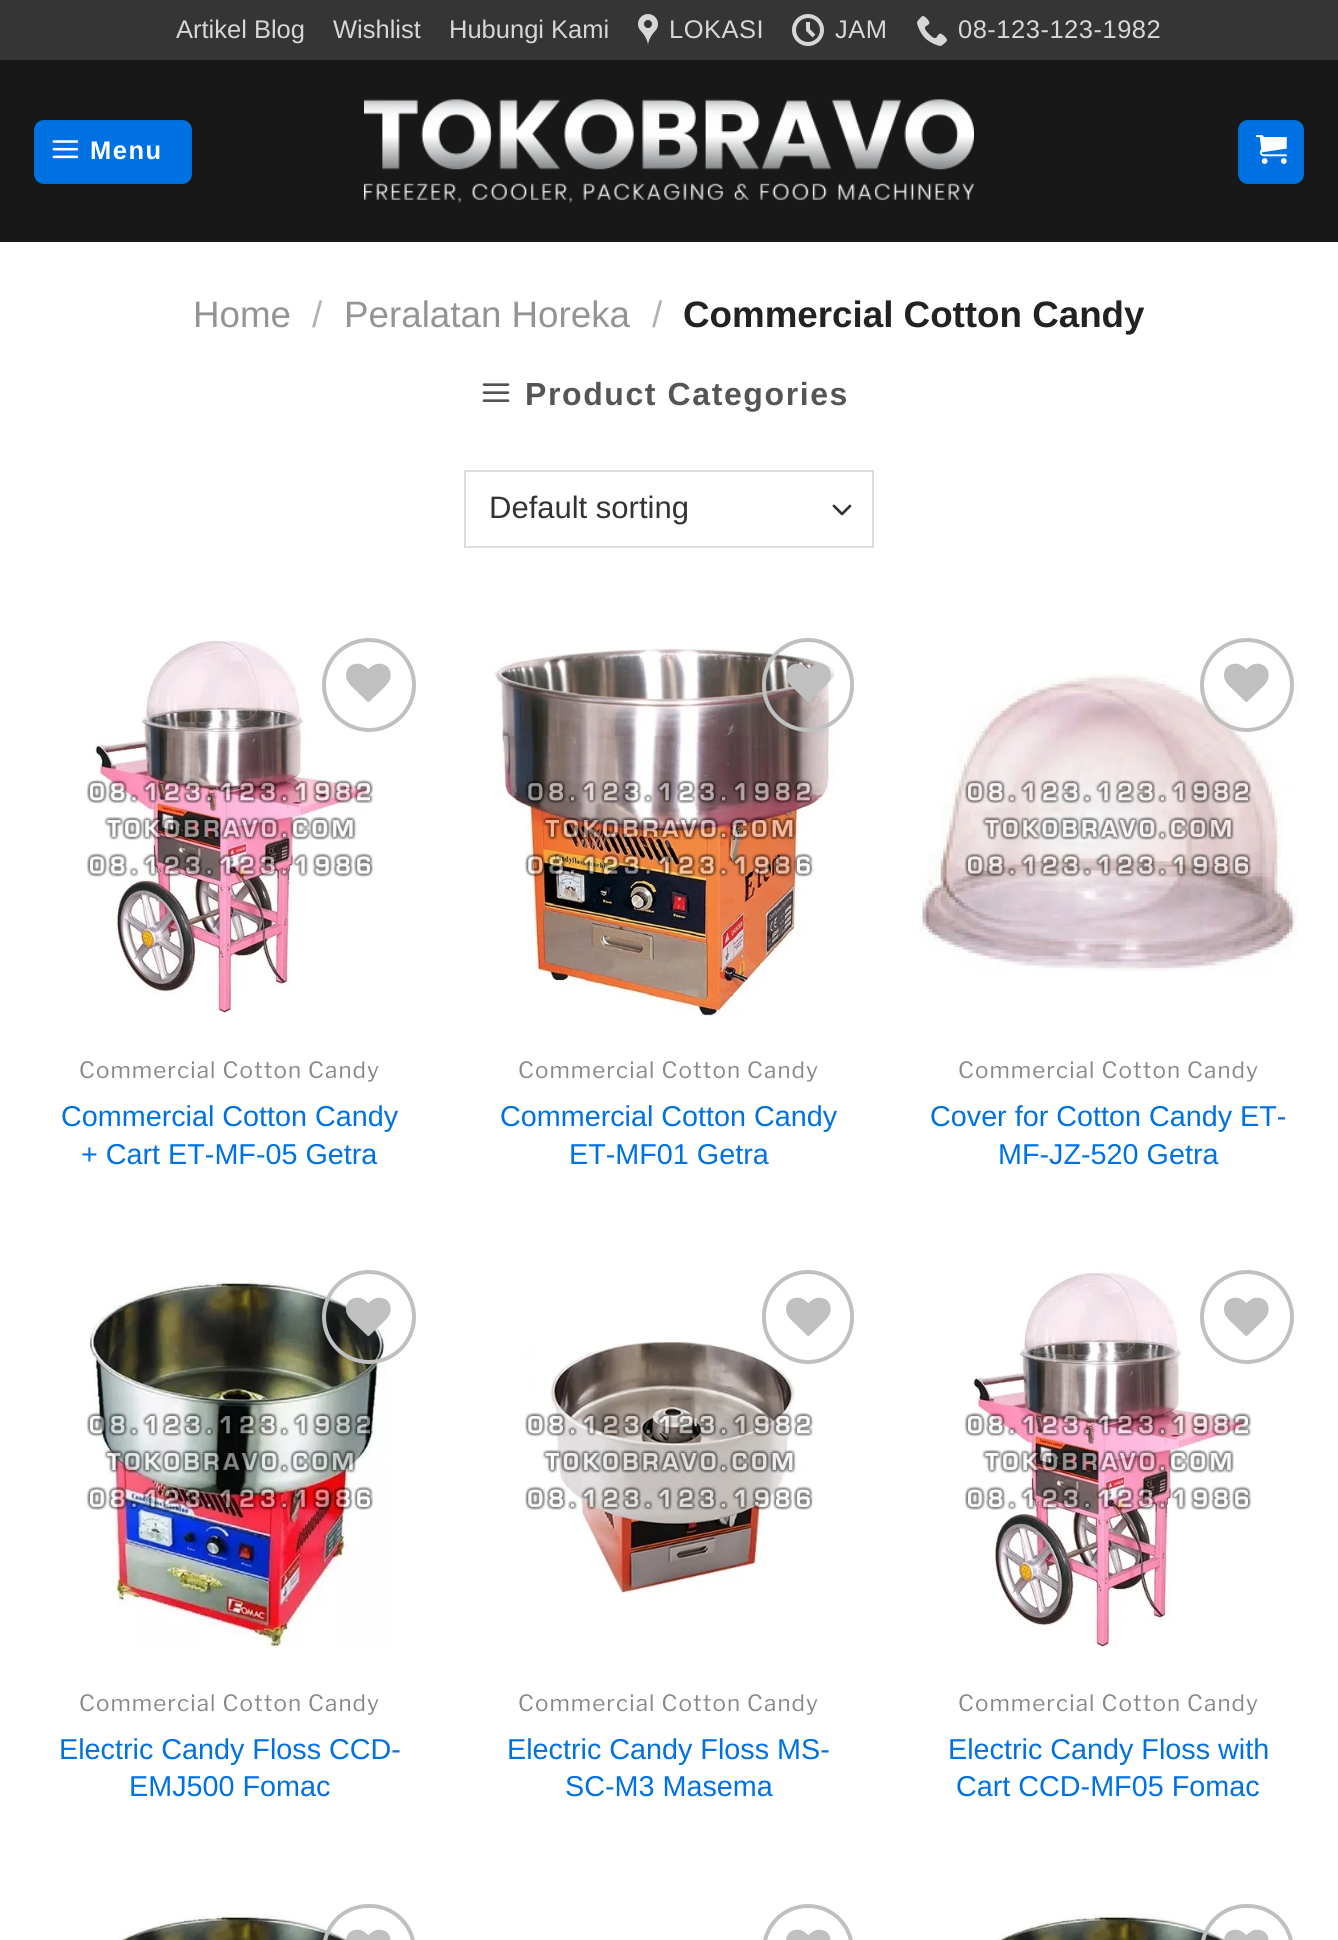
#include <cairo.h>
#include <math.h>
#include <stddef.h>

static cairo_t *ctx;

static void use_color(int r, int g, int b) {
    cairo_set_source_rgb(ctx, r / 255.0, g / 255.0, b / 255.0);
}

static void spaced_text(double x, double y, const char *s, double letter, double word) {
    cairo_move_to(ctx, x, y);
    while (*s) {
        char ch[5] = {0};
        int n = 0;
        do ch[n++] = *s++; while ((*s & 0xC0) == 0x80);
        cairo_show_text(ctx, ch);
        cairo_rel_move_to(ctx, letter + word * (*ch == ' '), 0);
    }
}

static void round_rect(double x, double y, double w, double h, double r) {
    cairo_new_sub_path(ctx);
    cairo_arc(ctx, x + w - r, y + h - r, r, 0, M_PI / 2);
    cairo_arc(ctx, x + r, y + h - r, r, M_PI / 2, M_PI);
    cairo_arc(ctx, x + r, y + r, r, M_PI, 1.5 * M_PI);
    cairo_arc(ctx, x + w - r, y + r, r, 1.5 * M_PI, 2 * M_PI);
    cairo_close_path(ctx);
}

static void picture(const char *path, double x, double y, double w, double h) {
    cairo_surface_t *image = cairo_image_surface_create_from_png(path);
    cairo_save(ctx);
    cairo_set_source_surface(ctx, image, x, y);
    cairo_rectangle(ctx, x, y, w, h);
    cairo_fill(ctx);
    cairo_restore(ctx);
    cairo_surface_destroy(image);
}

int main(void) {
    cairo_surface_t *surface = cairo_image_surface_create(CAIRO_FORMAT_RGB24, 1338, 1940);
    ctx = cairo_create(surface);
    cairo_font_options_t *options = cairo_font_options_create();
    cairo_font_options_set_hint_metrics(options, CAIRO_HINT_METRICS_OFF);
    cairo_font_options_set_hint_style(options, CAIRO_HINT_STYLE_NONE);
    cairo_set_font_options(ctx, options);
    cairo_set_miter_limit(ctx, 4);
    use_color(255, 255, 255);
    cairo_paint(ctx);
    use_color(53, 53, 53);
    cairo_rectangle(ctx, 0, 0, 1338, 60);
    cairo_fill(ctx);
    cairo_select_font_face(ctx, "Liberation Sans", CAIRO_FONT_SLANT_NORMAL, CAIRO_FONT_WEIGHT_NORMAL);
    cairo_set_font_size(ctx, 25.5);
    use_color(215, 215, 215);
    cairo_move_to(ctx, 176, 38);
    cairo_show_text(ctx, "Artikel Blog");
    cairo_move_to(ctx, 333, 38);
    cairo_show_text(ctx, "Wishlist");
    cairo_move_to(ctx, 449, 38);
    cairo_show_text(ctx, "Hubungi Kami");
    picture("img1.png", 638, 14, 20, 32);
    spaced_text(669, 38, "LOKASI", 0.5, 0);
    picture("img2.png", 792, 14, 32, 32);
    spaced_text(835, 38, "JAM", 0.5, 0);
    picture("img3.png", 917, 16, 30, 30);
    spaced_text(958, 38, "08-123-123-1982", 0.5, 0);
    use_color(24, 24, 24);
    cairo_rectangle(ctx, 0, 60, 1338, 182);
    cairo_fill(ctx);
    use_color(0, 113, 227);
    round_rect(34, 120, 158, 64, 10);
    cairo_fill(ctx);
    cairo_rectangle(ctx, 35, 121, 156, 62);
    cairo_set_source_rgba(ctx, 0, 0, 0, 0.05);
    cairo_stroke(ctx);
    picture("img4.png", 52, 140, 27, 19);
    cairo_select_font_face(ctx, "Liberation Sans", CAIRO_FONT_SLANT_NORMAL, CAIRO_FONT_WEIGHT_BOLD);
    use_color(255, 255, 255);
    spaced_text(90, 159, "Menu", 1.5, 0);
    picture("img5.png", 364, 99, 610, 104);
    use_color(0, 113, 227);
    round_rect(1238, 120, 66, 64, 10);
    cairo_fill(ctx);
    cairo_rectangle(ctx, 1239, 121, 64, 62);
    cairo_set_source_rgba(ctx, 0, 0, 0, 0.05);
    cairo_stroke(ctx);
    picture("img6.png", 1256, 135, 31, 29);
    cairo_select_font_face(ctx, "Liberation Sans", CAIRO_FONT_SLANT_NORMAL, CAIRO_FONT_WEIGHT_NORMAL);
    cairo_set_font_size(ctx, 36.75);
    use_color(148, 148, 148);
    cairo_move_to(ctx, 193, 327);
    cairo_show_text(ctx, "Home");
    use_color(178, 178, 178);
    cairo_move_to(ctx, 312, 327);
    cairo_show_text(ctx, "/");
    use_color(148, 148, 148);
    cairo_move_to(ctx, 344, 327);
    cairo_show_text(ctx, "Peralatan Horeka");
    use_color(178, 178, 178);
    cairo_move_to(ctx, 652, 327);
    cairo_show_text(ctx, "/");
    cairo_select_font_face(ctx, "Liberation Sans", CAIRO_FONT_SLANT_NORMAL, CAIRO_FONT_WEIGHT_BOLD);
    use_color(34, 34, 34);
    cairo_move_to(ctx, 683, 327);
    cairo_show_text(ctx, "Commercial Cotton Candy");
    picture("img7.png", 482, 383, 28, 19);
    cairo_set_font_size(ctx, 32);
    use_color(85, 85, 85);
    spaced_text(525, 405, "Product Categories", 1.6, 0);
    cairo_new_path(ctx);
    cairo_move_to(ctx, 834, 506);
    cairo_line_to(ctx, 842, 514);
    cairo_line_to(ctx, 850, 506);
    use_color(51, 51, 51);
    cairo_set_line_width(ctx, 2.7);
    cairo_set_line_cap(ctx, CAIRO_LINE_CAP_ROUND);
    cairo_set_line_join(ctx, CAIRO_LINE_JOIN_ROUND);
    cairo_stroke(ctx);
    cairo_rectangle(ctx, 465, 471, 408, 76);
    use_color(221, 221, 221);
    cairo_set_line_width(ctx, 2);
    cairo_set_line_cap(ctx, CAIRO_LINE_CAP_BUTT);
    cairo_set_line_join(ctx, CAIRO_LINE_JOIN_MITER);
    cairo_stroke(ctx);
    cairo_select_font_face(ctx, "Liberation Sans", CAIRO_FONT_SLANT_NORMAL, CAIRO_FONT_WEIGHT_NORMAL);
    cairo_set_font_size(ctx, 31);
    use_color(51, 51, 51);
    cairo_move_to(ctx, 489, 518);
    cairo_show_text(ctx, "Default sorting");
    picture("img9.png", 86, 639, 288, 375);
    cairo_arc(ctx, 369, 685, 45, 0, 2 * M_PI);
    use_color(192, 192, 192);
    cairo_set_line_width(ctx, 4);
    cairo_stroke(ctx);
    picture("img8.png", 346, 663, 45, 39);
    cairo_select_font_face(ctx, "Libre Franklin Thin", CAIRO_FONT_SLANT_NORMAL, CAIRO_FONT_WEIGHT_NORMAL);
    cairo_set_font_size(ctx, 22.4);
    use_color(136, 136, 136);
    spaced_text(79, 1078, "Commercial Cotton Candy", 1.1, 0);
    cairo_select_font_face(ctx, "Liberation Sans", CAIRO_FONT_SLANT_NORMAL, CAIRO_FONT_WEIGHT_NORMAL);
    cairo_set_font_size(ctx, 28.75);
    use_color(0, 113, 227);
    cairo_move_to(ctx, 61, 1126);
    cairo_show_text(ctx, "Commercial Cotton Candy");
    cairo_move_to(ctx, 81, 1164);
    cairo_show_text(ctx, "+ Cart ET-MF-05 Getra");
    picture("img11.png", 494, 647, 341, 369);
    round_rect(764, 640, 88, 90, 44);
    use_color(192, 192, 192);
    cairo_stroke(ctx);
    picture("img10.png", 786, 663, 45, 39);
    cairo_select_font_face(ctx, "Libre Franklin Thin", CAIRO_FONT_SLANT_NORMAL, CAIRO_FONT_WEIGHT_NORMAL);
    cairo_set_font_size(ctx, 22.4);
    use_color(136, 136, 136);
    spaced_text(518, 1078, "Commercial Cotton Candy", 1.1, 0);
    cairo_select_font_face(ctx, "Liberation Sans", CAIRO_FONT_SLANT_NORMAL, CAIRO_FONT_WEIGHT_NORMAL);
    cairo_set_font_size(ctx, 28.75);
    use_color(0, 113, 227);
    cairo_move_to(ctx, 500, 1126);
    cairo_show_text(ctx, "Commercial Cotton Candy");
    cairo_move_to(ctx, 569, 1164);
    cairo_show_text(ctx, "ET-MF01 Getra");
    picture("img12.png", 919, 674, 379, 297);
    cairo_arc(ctx, 1247, 685, 45, 0, 2 * M_PI);
    use_color(192, 192, 192);
    cairo_stroke(ctx);
    picture("img8.png", 1224, 663, 45, 39);
    cairo_select_font_face(ctx, "Libre Franklin Thin", CAIRO_FONT_SLANT_NORMAL, CAIRO_FONT_WEIGHT_NORMAL);
    cairo_set_font_size(ctx, 22.4);
    use_color(136, 136, 136);
    spaced_text(958, 1078, "Commercial Cotton Candy", 1.1, 0);
    cairo_select_font_face(ctx, "Liberation Sans", CAIRO_FONT_SLANT_NORMAL, CAIRO_FONT_WEIGHT_NORMAL);
    cairo_set_font_size(ctx, 28.75);
    use_color(0, 113, 227);
    cairo_move_to(ctx, 930, 1126);
    cairo_show_text(ctx, "Cover for Cotton Candy ET-");
    cairo_move_to(ctx, 998, 1164);
    cairo_show_text(ctx, "MF-JZ-520 Getra");
    picture("img14.png", 86, 1280, 302, 367);
    cairo_arc(ctx, 369, 1317, 45, 0, 2 * M_PI);
    use_color(192, 192, 192);
    cairo_stroke(ctx);
    picture("img13.png", 346, 1297, 45, 39);
    cairo_select_font_face(ctx, "Libre Franklin Thin", CAIRO_FONT_SLANT_NORMAL, CAIRO_FONT_WEIGHT_NORMAL);
    cairo_set_font_size(ctx, 22.4);
    use_color(136, 136, 136);
    spaced_text(79, 1711, "Commercial Cotton Candy", 1.1, 0);
    cairo_select_font_face(ctx, "Liberation Sans", CAIRO_FONT_SLANT_NORMAL, CAIRO_FONT_WEIGHT_NORMAL);
    cairo_set_font_size(ctx, 28.75);
    use_color(0, 113, 227);
    cairo_move_to(ctx, 59, 1759);
    cairo_show_text(ctx, "Electric Candy Floss CCD-");
    cairo_move_to(ctx, 129, 1796);
    cairo_show_text(ctx, "EMJ500 Fomac");
    picture("img15.png", 525, 1340, 289, 254);
    round_rect(764, 1272, 88, 90, 44);
    use_color(192, 192, 192);
    cairo_stroke(ctx);
    picture("img8.png", 786, 1297, 45, 39);
    cairo_select_font_face(ctx, "Libre Franklin Thin", CAIRO_FONT_SLANT_NORMAL, CAIRO_FONT_WEIGHT_NORMAL);
    cairo_set_font_size(ctx, 22.4);
    use_color(136, 136, 136);
    spaced_text(518, 1711, "Commercial Cotton Candy", 1.1, 0);
    cairo_select_font_face(ctx, "Liberation Sans", CAIRO_FONT_SLANT_NORMAL, CAIRO_FONT_WEIGHT_NORMAL);
    cairo_set_font_size(ctx, 28.75);
    use_color(0, 113, 227);
    cairo_move_to(ctx, 507, 1759);
    cairo_show_text(ctx, "Electric Candy Floss MS-");
    cairo_move_to(ctx, 565, 1796);
    cairo_show_text(ctx, "SC-M3 Masema");
    picture("img16.png", 964, 1271, 288, 377);
    cairo_arc(ctx, 1247, 1317, 45, 0, 2 * M_PI);
    use_color(192, 192, 192);
    cairo_stroke(ctx);
    picture("img8.png", 1224, 1297, 45, 39);
    cairo_select_font_face(ctx, "Libre Franklin Thin", CAIRO_FONT_SLANT_NORMAL, CAIRO_FONT_WEIGHT_NORMAL);
    cairo_set_font_size(ctx, 22.4);
    use_color(136, 136, 136);
    spaced_text(958, 1711, "Commercial Cotton Candy", 1.1, 0);
    cairo_select_font_face(ctx, "Liberation Sans", CAIRO_FONT_SLANT_NORMAL, CAIRO_FONT_WEIGHT_NORMAL);
    cairo_set_font_size(ctx, 28.75);
    use_color(0, 113, 227);
    cairo_move_to(ctx, 948, 1759);
    cairo_show_text(ctx, "Electric Candy Floss with");
    cairo_move_to(ctx, 956, 1796);
    cairo_show_text(ctx, "Cart CCD-MF05 Fomac");
    picture("img17.png", 119, 1914, 236, 26);
    round_rect(324, 1906, 90, 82, 44);
    use_color(192, 192, 192);
    cairo_stroke(ctx);
    picture("img18.png", 346, 1929, 45, 11);
    round_rect(764, 1906, 88, 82, 44);
    cairo_stroke(ctx);
    picture("img19.png", 786, 1929, 45, 11);
    picture("img17.png", 997, 1914, 236, 26);
    round_rect(1202, 1906, 90, 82, 44);
    cairo_stroke(ctx);
    picture("img18.png", 1224, 1929, 45, 11);
    cairo_surface_write_to_png(surface, "result.png");
    cairo_font_options_destroy(options);
    cairo_destroy(ctx);
    cairo_surface_destroy(surface);
    return 0;
}
